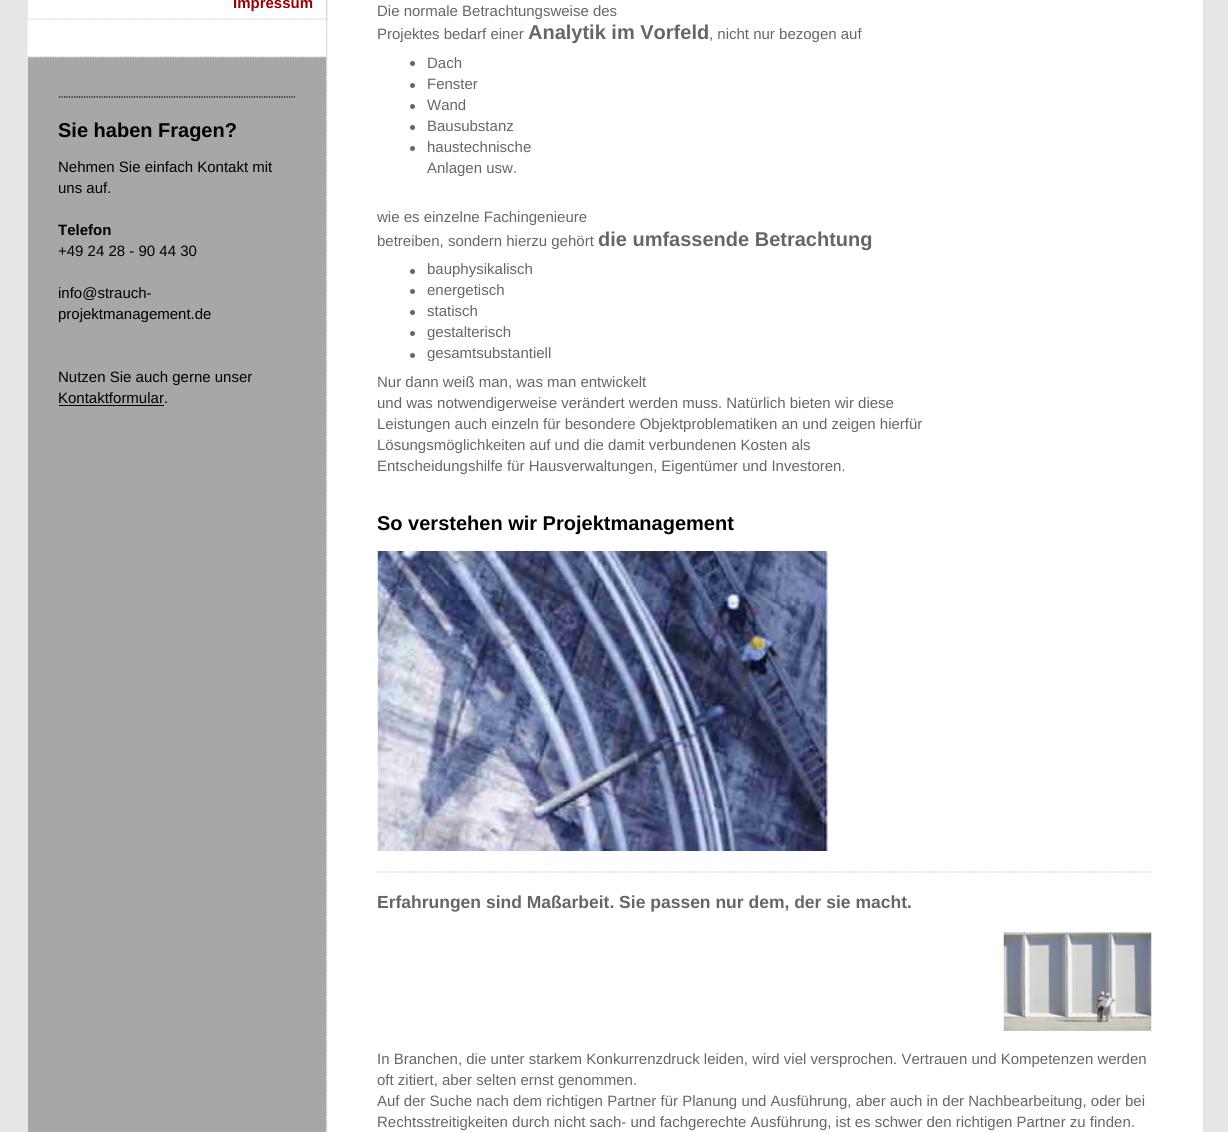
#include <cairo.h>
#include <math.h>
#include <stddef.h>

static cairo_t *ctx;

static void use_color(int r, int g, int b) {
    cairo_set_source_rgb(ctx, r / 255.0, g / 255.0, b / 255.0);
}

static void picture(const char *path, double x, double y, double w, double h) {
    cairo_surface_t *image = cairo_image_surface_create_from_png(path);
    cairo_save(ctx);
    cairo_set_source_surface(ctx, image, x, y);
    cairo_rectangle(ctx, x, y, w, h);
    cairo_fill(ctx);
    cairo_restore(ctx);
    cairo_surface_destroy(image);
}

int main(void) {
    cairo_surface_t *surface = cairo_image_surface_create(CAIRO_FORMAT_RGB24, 1228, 1132);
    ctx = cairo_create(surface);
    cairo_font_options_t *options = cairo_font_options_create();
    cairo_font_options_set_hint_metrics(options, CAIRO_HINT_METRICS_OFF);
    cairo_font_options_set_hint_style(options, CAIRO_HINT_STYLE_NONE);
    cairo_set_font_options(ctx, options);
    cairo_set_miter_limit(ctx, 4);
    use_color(230, 230, 230);
    cairo_paint(ctx);
    use_color(167, 167, 166);
    cairo_rectangle(ctx, 28, 0, 299, 1132);
    cairo_fill(ctx);
    picture("img1.png", 326, 0, 2, 1132);
    picture("img2.png", 27, 18, 300, 40);
    use_color(255, 255, 255);
    cairo_rectangle(ctx, 28, 0, 298, 19);
    cairo_fill(ctx);
    picture("img3.png", 27, 18, 299, 2);
    cairo_select_font_face(ctx, "Liberation Sans", CAIRO_FONT_SLANT_NORMAL, CAIRO_FONT_WEIGHT_BOLD);
    cairo_set_font_size(ctx, 15);
    use_color(153, 0, 0);
    cairo_move_to(ctx, 233, 8);
    cairo_show_text(ctx, "Impressum");
    cairo_new_path(ctx);
    cairo_move_to(ctx, 59, 97);
    cairo_line_to(ctx, 295, 97);
    use_color(0, 0, 0);
    cairo_set_line_width(ctx, 1.2);
    cairo_set_dash(ctx, (double[]){1.25, 1.25}, 2, 0);
    cairo_stroke(ctx);
    cairo_set_font_size(ctx, 20);
    cairo_move_to(ctx, 58, 137);
    cairo_show_text(ctx, "Sie haben Fragen?");
    cairo_select_font_face(ctx, "Liberation Sans", CAIRO_FONT_SLANT_NORMAL, CAIRO_FONT_WEIGHT_NORMAL);
    cairo_set_font_size(ctx, 15);
    cairo_move_to(ctx, 58, 172);
    cairo_show_text(ctx, "Nehmen Sie einfach Kontakt mit");
    cairo_move_to(ctx, 58, 193);
    cairo_show_text(ctx, "uns auf.");
    cairo_select_font_face(ctx, "Liberation Sans", CAIRO_FONT_SLANT_NORMAL, CAIRO_FONT_WEIGHT_BOLD);
    cairo_move_to(ctx, 58, 235);
    cairo_show_text(ctx, "Telefon");
    cairo_select_font_face(ctx, "Liberation Sans", CAIRO_FONT_SLANT_NORMAL, CAIRO_FONT_WEIGHT_NORMAL);
    cairo_move_to(ctx, 58, 256);
    cairo_show_text(ctx, "+49 24 28 - 90 44 30");
    cairo_move_to(ctx, 58, 298);
    cairo_show_text(ctx, "info@strauch-");
    cairo_move_to(ctx, 58, 319);
    cairo_show_text(ctx, "projektmanagement.de");
    cairo_move_to(ctx, 58, 382);
    cairo_show_text(ctx, "Nutzen Sie auch gerne unser");
    cairo_move_to(ctx, 58, 403);
    cairo_show_text(ctx, "Kontaktformular.");
    cairo_rectangle(ctx, 59, 405, 105, 1);
    cairo_fill(ctx);
    use_color(255, 255, 255);
    cairo_rectangle(ctx, 328, 0, 875, 1132);
    cairo_fill(ctx);
    use_color(102, 102, 102);
    cairo_move_to(ctx, 377, 16);
    cairo_show_text(ctx, "Die normale Betrachtungsweise des");
    cairo_move_to(ctx, 377, 39);
    cairo_show_text(ctx, "Projektes bedarf einer");
    cairo_select_font_face(ctx, "Liberation Sans", CAIRO_FONT_SLANT_NORMAL, CAIRO_FONT_WEIGHT_BOLD);
    cairo_set_font_size(ctx, 20);
    cairo_move_to(ctx, 528, 39);
    cairo_show_text(ctx, "Analytik im Vorfeld");
    cairo_select_font_face(ctx, "Liberation Sans", CAIRO_FONT_SLANT_NORMAL, CAIRO_FONT_WEIGHT_NORMAL);
    cairo_set_font_size(ctx, 15);
    cairo_move_to(ctx, 709, 39);
    cairo_show_text(ctx, ", nicht nur bezogen auf");
    cairo_new_path(ctx);
    cairo_arc(ctx, 412.5, 63.5, 2.5, 0, 2 * M_PI);
    cairo_fill(ctx);
    cairo_move_to(ctx, 427, 68);
    cairo_show_text(ctx, "Dach");
    cairo_new_path(ctx);
    cairo_arc(ctx, 412.5, 85.5, 2.5, 0, 2 * M_PI);
    cairo_fill(ctx);
    cairo_move_to(ctx, 427, 89);
    cairo_show_text(ctx, "Fenster");
    cairo_new_path(ctx);
    cairo_arc(ctx, 412.5, 106.5, 2.5, 0, 2 * M_PI);
    cairo_fill(ctx);
    cairo_move_to(ctx, 427, 110);
    cairo_show_text(ctx, "Wand");
    cairo_new_path(ctx);
    cairo_arc(ctx, 412.5, 127.5, 2.5, 0, 2 * M_PI);
    cairo_fill(ctx);
    cairo_move_to(ctx, 427, 131);
    cairo_show_text(ctx, "Bausubstanz");
    cairo_new_path(ctx);
    cairo_arc(ctx, 412.5, 148.5, 2.5, 0, 2 * M_PI);
    cairo_fill(ctx);
    cairo_move_to(ctx, 427, 152);
    cairo_show_text(ctx, "haustechnische");
    cairo_move_to(ctx, 427, 173);
    cairo_show_text(ctx, "Anlagen usw.");
    cairo_move_to(ctx, 377, 222);
    cairo_show_text(ctx, "wie es einzelne Fachingenieure");
    cairo_move_to(ctx, 377, 246);
    cairo_show_text(ctx, "betreiben, sondern hierzu gehört");
    cairo_select_font_face(ctx, "Liberation Sans", CAIRO_FONT_SLANT_NORMAL, CAIRO_FONT_WEIGHT_BOLD);
    cairo_set_font_size(ctx, 20);
    cairo_move_to(ctx, 598, 246);
    cairo_show_text(ctx, "die umfassende Betrachtung");
    cairo_new_path(ctx);
    cairo_arc(ctx, 412.5, 271.5, 2.5, 0, 2 * M_PI);
    cairo_fill(ctx);
    cairo_select_font_face(ctx, "Liberation Sans", CAIRO_FONT_SLANT_NORMAL, CAIRO_FONT_WEIGHT_NORMAL);
    cairo_set_font_size(ctx, 15);
    cairo_move_to(ctx, 427, 274);
    cairo_show_text(ctx, "bauphysikalisch");
    cairo_new_path(ctx);
    cairo_arc(ctx, 412.5, 291.5, 2.5, 0, 2 * M_PI);
    cairo_fill(ctx);
    cairo_move_to(ctx, 427, 295);
    cairo_show_text(ctx, "energetisch");
    cairo_new_path(ctx);
    cairo_arc(ctx, 412.5, 312.5, 2.5, 0, 2 * M_PI);
    cairo_fill(ctx);
    cairo_move_to(ctx, 427, 316);
    cairo_show_text(ctx, "statisch");
    cairo_new_path(ctx);
    cairo_arc(ctx, 412.5, 333.5, 2.5, 0, 2 * M_PI);
    cairo_fill(ctx);
    cairo_move_to(ctx, 427, 337);
    cairo_show_text(ctx, "gestalterisch");
    cairo_new_path(ctx);
    cairo_arc(ctx, 412.5, 355.5, 2.5, 0, 2 * M_PI);
    cairo_fill(ctx);
    cairo_move_to(ctx, 427, 358);
    cairo_show_text(ctx, "gesamtsubstantiell");
    cairo_move_to(ctx, 377, 387);
    cairo_show_text(ctx, "Nur dann weiß man, was man entwickelt");
    cairo_move_to(ctx, 377, 408);
    cairo_show_text(ctx, "und was notwendigerweise verändert werden muss. Natürlich bieten wir diese");
    cairo_move_to(ctx, 377, 429);
    cairo_show_text(ctx, "Leistungen auch einzeln für besondere Objektproblematiken an und zeigen hierfür");
    cairo_move_to(ctx, 377, 450);
    cairo_show_text(ctx, "Lösungsmöglichkeiten auf und die damit verbundenen Kosten als");
    cairo_move_to(ctx, 377, 471);
    cairo_show_text(ctx, "Entscheidungshilfe für Hausverwaltungen, Eigentümer und Investoren.");
    cairo_select_font_face(ctx, "Liberation Sans", CAIRO_FONT_SLANT_NORMAL, CAIRO_FONT_WEIGHT_BOLD);
    cairo_set_font_size(ctx, 20);
    use_color(0, 0, 0);
    cairo_move_to(ctx, 377, 530);
    cairo_show_text(ctx, "So verstehen wir Projektmanagement");
    picture("img4.png", 377, 551, 451, 300);
    cairo_new_path(ctx);
    cairo_move_to(ctx, 377.5, 872);
    cairo_line_to(ctx, 1152.5, 872);
    use_color(204, 204, 204);
    cairo_stroke(ctx);
    cairo_set_font_size(ctx, 17.5);
    use_color(102, 102, 102);
    cairo_move_to(ctx, 377, 908);
    cairo_show_text(ctx, "Erfahrungen sind Maßarbeit. Sie passen nur dem, der sie macht.");
    picture("img5.png", 1003, 932, 149, 99);
    cairo_select_font_face(ctx, "Liberation Sans", CAIRO_FONT_SLANT_NORMAL, CAIRO_FONT_WEIGHT_NORMAL);
    cairo_set_font_size(ctx, 15);
    cairo_move_to(ctx, 377, 1064);
    cairo_show_text(ctx, "In Branchen, die unter starkem Konkurrenzdruck leiden, wird viel versprochen. Vertrauen und Kompetenzen werden");
    cairo_move_to(ctx, 377, 1085);
    cairo_show_text(ctx, "oft zitiert, aber selten ernst genommen.");
    cairo_move_to(ctx, 377, 1106);
    cairo_show_text(ctx, "Auf der Suche nach dem richtigen Partner für Planung und Ausführung, aber auch in der Nachbearbeitung, oder bei");
    cairo_move_to(ctx, 377, 1127);
    cairo_show_text(ctx, "Rechtsstreitigkeiten durch nicht sach- und fachgerechte Ausführung, ist es schwer den richtigen Partner zu finden.");
    cairo_surface_write_to_png(surface, "result.png");
    cairo_font_options_destroy(options);
    cairo_destroy(ctx);
    cairo_surface_destroy(surface);
    return 0;
}
